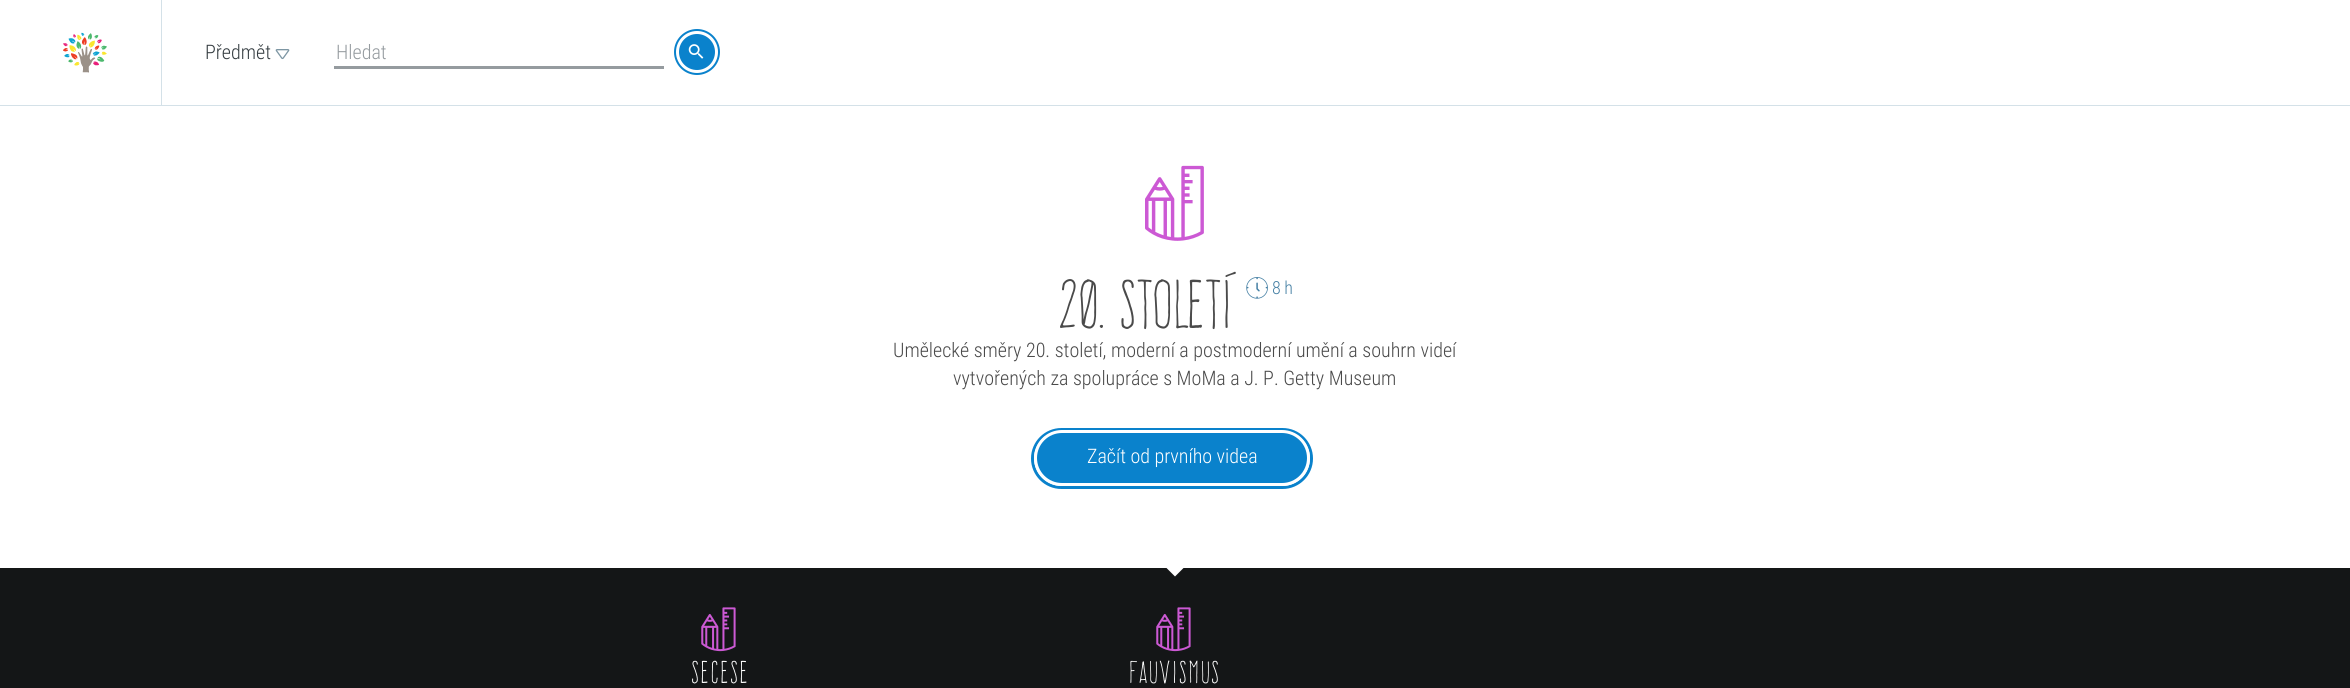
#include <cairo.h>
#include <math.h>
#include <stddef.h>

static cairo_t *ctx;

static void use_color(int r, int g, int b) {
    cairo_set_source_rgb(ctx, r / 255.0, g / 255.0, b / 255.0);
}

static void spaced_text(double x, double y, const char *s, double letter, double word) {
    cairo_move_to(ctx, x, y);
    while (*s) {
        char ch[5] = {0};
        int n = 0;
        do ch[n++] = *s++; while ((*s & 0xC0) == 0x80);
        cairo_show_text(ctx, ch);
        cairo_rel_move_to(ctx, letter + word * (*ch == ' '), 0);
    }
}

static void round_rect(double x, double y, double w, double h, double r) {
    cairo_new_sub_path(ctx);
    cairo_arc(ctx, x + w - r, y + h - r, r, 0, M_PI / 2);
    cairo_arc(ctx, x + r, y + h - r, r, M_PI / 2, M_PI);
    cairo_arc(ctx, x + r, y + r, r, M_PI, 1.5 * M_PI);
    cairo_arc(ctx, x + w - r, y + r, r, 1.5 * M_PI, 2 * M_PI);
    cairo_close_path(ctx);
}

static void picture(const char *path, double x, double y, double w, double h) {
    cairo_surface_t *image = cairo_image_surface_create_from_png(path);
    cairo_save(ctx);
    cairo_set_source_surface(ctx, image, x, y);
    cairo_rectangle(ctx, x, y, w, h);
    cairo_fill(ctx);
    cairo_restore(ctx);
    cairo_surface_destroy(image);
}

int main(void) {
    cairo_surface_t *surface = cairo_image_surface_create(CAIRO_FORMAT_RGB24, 2350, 688);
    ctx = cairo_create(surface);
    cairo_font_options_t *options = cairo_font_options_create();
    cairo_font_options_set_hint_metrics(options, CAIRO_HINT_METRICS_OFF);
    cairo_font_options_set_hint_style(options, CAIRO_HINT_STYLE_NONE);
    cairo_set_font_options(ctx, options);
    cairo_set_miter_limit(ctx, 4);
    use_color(255, 255, 255);
    cairo_paint(ctx);
    use_color(212, 225, 232);
    cairo_rectangle(ctx, 0, 105, 2350, 1);
    cairo_fill(ctx);
    cairo_rectangle(ctx, 161, 0, 1, 105);
    cairo_fill(ctx);
    picture("img1.png", 63, 32, 44, 41);
    cairo_select_font_face(ctx, "Roboto Condensed Light", CAIRO_FONT_SLANT_NORMAL, CAIRO_FONT_WEIGHT_NORMAL);
    cairo_set_font_size(ctx, 20);
    use_color(53, 61, 65);
    cairo_move_to(ctx, 205, 59);
    cairo_show_text(ctx, "Předmět");
    picture("img2.png", 275, 49, 15, 11);
    use_color(149, 155, 159);
    cairo_rectangle(ctx, 334, 66, 330, 3);
    cairo_fill(ctx);
    cairo_move_to(ctx, 336, 59);
    cairo_show_text(ctx, "Hledat");
    cairo_new_path(ctx);
    cairo_arc(ctx, 697, 52, 21.5, 0, 2 * M_PI);
    use_color(10, 130, 204);
    cairo_set_line_width(ctx, 3);
    cairo_stroke(ctx);
    cairo_arc(ctx, 697, 52, 19.5, 0, 2 * M_PI);
    cairo_fill_preserve(ctx);
    use_color(255, 255, 255);
    cairo_stroke(ctx);
    picture("img3.png", 688, 44, 16, 15);
    picture("img4.png", 1145, 165, 59, 76);
    cairo_select_font_face(ctx, "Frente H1", CAIRO_FONT_SLANT_NORMAL, CAIRO_FONT_WEIGHT_NORMAL);
    cairo_set_font_size(ctx, 60);
    use_color(74, 74, 74);
    cairo_move_to(ctx, 1057, 328);
    cairo_show_text(ctx, "20. století");
    picture("img5.png", 1246, 277, 22, 22);
    cairo_select_font_face(ctx, "Roboto Condensed Light", CAIRO_FONT_SLANT_NORMAL, CAIRO_FONT_WEIGHT_NORMAL);
    cairo_set_font_size(ctx, 18);
    use_color(71, 129, 165);
    cairo_move_to(ctx, 1272, 294);
    cairo_show_text(ctx, "8 h");
    cairo_set_font_size(ctx, 20);
    use_color(74, 74, 74);
    cairo_move_to(ctx, 893, 357);
    cairo_show_text(ctx, "Umělecké směry 20. století, moderní a postmoderní umění a souhrn videí");
    cairo_move_to(ctx, 953, 385);
    cairo_show_text(ctx, "vytvořených za spolupráce s MoMa a J. P. Getty Museum");
    round_rect(1032.5, 429.5, 279, 58, 29);
    use_color(10, 130, 204);
    cairo_stroke(ctx);
    round_rect(1035.5, 431.5, 273, 53, 26.5);
    cairo_fill_preserve(ctx);
    use_color(255, 255, 255);
    cairo_stroke(ctx);
    cairo_move_to(ctx, 1087, 463);
    cairo_show_text(ctx, "Začít od prvního videa");
    use_color(20, 22, 23);
    cairo_rectangle(ctx, 0, 568, 2350, 120);
    cairo_fill(ctx);
    use_color(255, 255, 255);
    cairo_new_path(ctx);
    cairo_move_to(ctx, 1175, 538);
    cairo_line_to(ctx, 1194.5, 557);
    cairo_line_to(ctx, 1175, 576.5);
    cairo_line_to(ctx, 1155.5, 557);
    cairo_close_path(ctx);
    cairo_fill(ctx);
    picture("img6.png", 701, 607, 35, 45);
    cairo_select_font_face(ctx, "Frente H1", CAIRO_FONT_SLANT_NORMAL, CAIRO_FONT_WEIGHT_NORMAL);
    cairo_set_font_size(ctx, 27.5);
    spaced_text(691, 683, "Secese", 1.9, 0);
    picture("img6.png", 1156, 607, 35, 45);
    spaced_text(1129, 683, "Fauvismus", 1.9, 0);
    cairo_surface_write_to_png(surface, "result.png");
    cairo_font_options_destroy(options);
    cairo_destroy(ctx);
    cairo_surface_destroy(surface);
    return 0;
}
